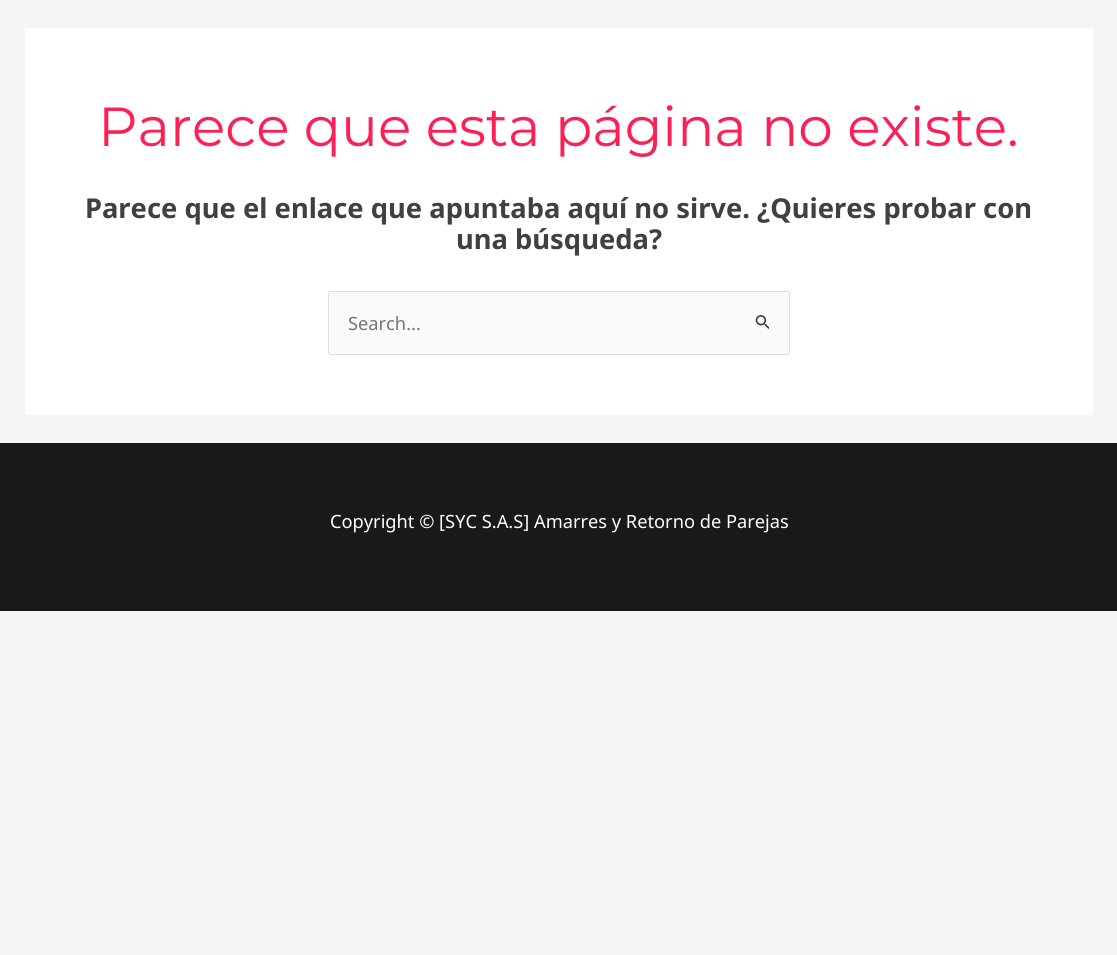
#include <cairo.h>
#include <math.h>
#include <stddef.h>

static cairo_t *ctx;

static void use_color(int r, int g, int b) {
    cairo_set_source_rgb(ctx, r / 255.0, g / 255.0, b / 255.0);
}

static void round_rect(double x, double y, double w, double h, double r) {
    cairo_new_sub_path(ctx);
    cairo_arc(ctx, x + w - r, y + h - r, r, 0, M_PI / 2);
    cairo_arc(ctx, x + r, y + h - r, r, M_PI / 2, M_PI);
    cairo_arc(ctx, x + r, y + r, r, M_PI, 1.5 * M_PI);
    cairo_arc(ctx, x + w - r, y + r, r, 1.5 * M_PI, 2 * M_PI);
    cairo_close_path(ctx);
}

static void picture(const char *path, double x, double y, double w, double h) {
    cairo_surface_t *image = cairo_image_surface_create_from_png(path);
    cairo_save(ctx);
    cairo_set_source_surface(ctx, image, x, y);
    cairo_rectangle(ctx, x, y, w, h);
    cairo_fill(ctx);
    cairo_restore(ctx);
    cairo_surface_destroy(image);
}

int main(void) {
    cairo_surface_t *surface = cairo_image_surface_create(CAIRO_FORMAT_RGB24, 1117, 955);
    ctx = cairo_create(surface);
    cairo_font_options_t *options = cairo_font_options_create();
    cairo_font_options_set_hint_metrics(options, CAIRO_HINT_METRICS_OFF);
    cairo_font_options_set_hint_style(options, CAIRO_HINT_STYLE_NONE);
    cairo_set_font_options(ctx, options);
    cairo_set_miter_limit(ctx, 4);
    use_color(245, 245, 245);
    cairo_paint(ctx);
    use_color(255, 255, 255);
    cairo_rectangle(ctx, 25, 28, 1068, 387);
    cairo_fill(ctx);
    cairo_select_font_face(ctx, "Montserrat", CAIRO_FONT_SLANT_NORMAL, CAIRO_FONT_WEIGHT_NORMAL);
    cairo_set_font_size(ctx, 55);
    use_color(251, 32, 86);
    cairo_move_to(ctx, 98, 146);
    cairo_show_text(ctx, "Parece que esta página no existe.");
    cairo_select_font_face(ctx, "Noto Sans", CAIRO_FONT_SLANT_NORMAL, CAIRO_FONT_WEIGHT_BOLD);
    cairo_set_font_size(ctx, 27.35);
    use_color(64, 64, 64);
    cairo_move_to(ctx, 85, 218);
    cairo_show_text(ctx, "Parece que el enlace que apuntaba aquí no sirve. ¿Quieres probar con");
    cairo_move_to(ctx, 456, 249);
    cairo_show_text(ctx, "una búsqueda?");
    use_color(250, 250, 250);
    round_rect(328.5, 291.5, 461, 63, 2);
    cairo_fill_preserve(ctx);
    use_color(221, 221, 221);
    cairo_set_line_width(ctx, 1);
    cairo_stroke(ctx);
    cairo_select_font_face(ctx, "Noto Sans", CAIRO_FONT_SLANT_NORMAL, CAIRO_FONT_WEIGHT_NORMAL);
    cairo_set_font_size(ctx, 18.25);
    use_color(117, 117, 117);
    cairo_move_to(ctx, 348, 330);
    cairo_show_text(ctx, "Search...");
    picture("img1.png", 755, 315, 14, 14);
    use_color(25, 25, 25);
    cairo_rectangle(ctx, 0, 443, 1117, 168);
    cairo_fill(ctx);
    use_color(255, 255, 255);
    cairo_move_to(ctx, 330, 528);
    cairo_show_text(ctx, "Copyright © [SYC S.A.S] Amarres y Retorno de Parejas");
    cairo_surface_write_to_png(surface, "result.png");
    cairo_font_options_destroy(options);
    cairo_destroy(ctx);
    cairo_surface_destroy(surface);
    return 0;
}
